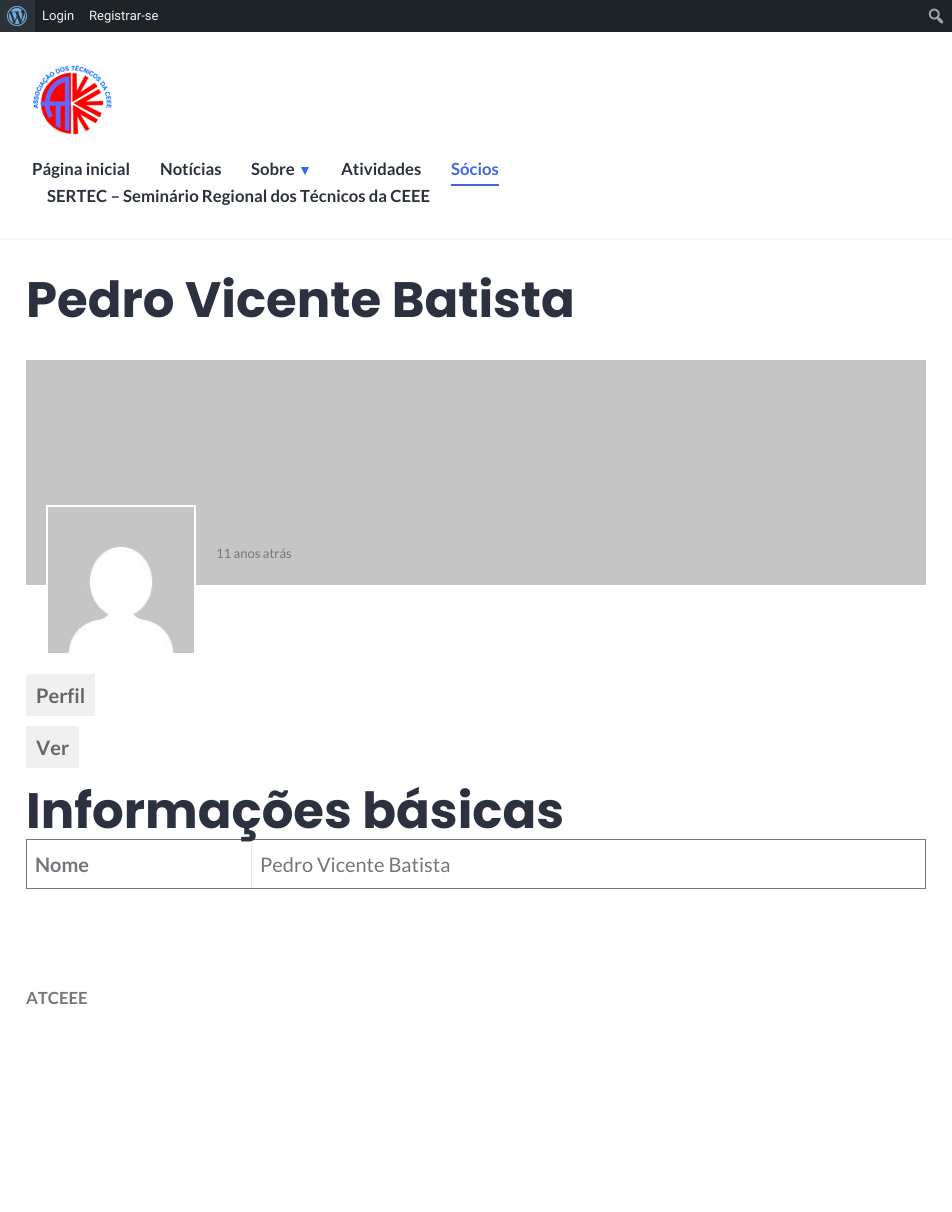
#include <cairo.h>
#include <math.h>
#include <stddef.h>

static cairo_t *ctx;

static void use_color(int r, int g, int b) {
    cairo_set_source_rgb(ctx, r / 255.0, g / 255.0, b / 255.0);
}

static void picture(const char *path, double x, double y, double w, double h) {
    cairo_surface_t *image = cairo_image_surface_create_from_png(path);
    cairo_save(ctx);
    cairo_set_source_surface(ctx, image, x, y);
    cairo_rectangle(ctx, x, y, w, h);
    cairo_fill(ctx);
    cairo_restore(ctx);
    cairo_surface_destroy(image);
}

int main(void) {
    cairo_surface_t *surface = cairo_image_surface_create(CAIRO_FORMAT_RGB24, 952, 1212);
    ctx = cairo_create(surface);
    cairo_font_options_t *options = cairo_font_options_create();
    cairo_font_options_set_hint_metrics(options, CAIRO_HINT_METRICS_OFF);
    cairo_font_options_set_hint_style(options, CAIRO_HINT_STYLE_NONE);
    cairo_set_font_options(ctx, options);
    cairo_set_miter_limit(ctx, 4);
    use_color(255, 255, 255);
    cairo_paint(ctx);
    use_color(29, 35, 39);
    cairo_rectangle(ctx, 35, 0, 917, 32);
    cairo_fill(ctx);
    use_color(44, 51, 56);
    cairo_rectangle(ctx, 0, 0, 35, 32);
    cairo_fill(ctx);
    picture("img1.png", 7, 6, 20, 20);
    cairo_select_font_face(ctx, "Roboto", CAIRO_FONT_SLANT_NORMAL, CAIRO_FONT_WEIGHT_NORMAL);
    cairo_set_font_size(ctx, 13);
    use_color(240, 240, 241);
    cairo_move_to(ctx, 42, 20);
    cairo_show_text(ctx, "Login");
    cairo_move_to(ctx, 89, 20);
    cairo_show_text(ctx, "Registrar-se");
    picture("img2.png", 928, 8, 16, 16);
    use_color(243, 243, 243);
    cairo_rectangle(ctx, 0, 239, 952, 1);
    cairo_fill(ctx);
    picture("img3.png", 33, 64, 79, 71);
    cairo_select_font_face(ctx, "Lato", CAIRO_FONT_SLANT_NORMAL, CAIRO_FONT_WEIGHT_BOLD);
    cairo_set_font_size(ctx, 16.7);
    use_color(44, 49, 63);
    cairo_move_to(ctx, 32, 175);
    cairo_show_text(ctx, "Página inicial");
    cairo_move_to(ctx, 160, 175);
    cairo_show_text(ctx, "Notícias");
    cairo_move_to(ctx, 251, 175);
    cairo_show_text(ctx, "Sobre");
    cairo_select_font_face(ctx, "Liberation Sans", CAIRO_FONT_SLANT_NORMAL, CAIRO_FONT_WEIGHT_BOLD);
    cairo_set_font_size(ctx, 14);
    use_color(62, 105, 220);
    cairo_move_to(ctx, 298, 175);
    cairo_show_text(ctx, "▼");
    cairo_select_font_face(ctx, "Lato", CAIRO_FONT_SLANT_NORMAL, CAIRO_FONT_WEIGHT_BOLD);
    cairo_set_font_size(ctx, 16.7);
    use_color(44, 49, 63);
    cairo_move_to(ctx, 341, 175);
    cairo_show_text(ctx, "Atividades");
    use_color(62, 105, 220);
    cairo_rectangle(ctx, 451, 184, 48, 2);
    cairo_fill(ctx);
    cairo_move_to(ctx, 451, 175);
    cairo_show_text(ctx, "Sócios");
    use_color(44, 49, 63);
    cairo_move_to(ctx, 47, 202);
    cairo_show_text(ctx, "SERTEC – Seminário Regional dos Técnicos da CEEE");
    cairo_select_font_face(ctx, "Poppins", CAIRO_FONT_SLANT_NORMAL, CAIRO_FONT_WEIGHT_BOLD);
    cairo_set_font_size(ctx, 49.75);
    cairo_move_to(ctx, 26, 317);
    cairo_show_text(ctx, "Pedro Vicente Batista");
    use_color(197, 197, 197);
    cairo_rectangle(ctx, 26, 360, 900, 225);
    cairo_fill(ctx);
    cairo_rectangle(ctx, 47, 506, 148, 148);
    use_color(255, 255, 255);
    cairo_stroke(ctx);
    picture("img4.png", 48, 507, 146, 146);
    cairo_select_font_face(ctx, "Lato", CAIRO_FONT_SLANT_NORMAL, CAIRO_FONT_WEIGHT_NORMAL);
    cairo_set_font_size(ctx, 13);
    use_color(116, 118, 126);
    cairo_move_to(ctx, 216, 558);
    cairo_show_text(ctx, "11 anos atrás");
    use_color(240, 240, 240);
    cairo_rectangle(ctx, 26, 674, 69, 42);
    cairo_fill(ctx);
    cairo_select_font_face(ctx, "Lato", CAIRO_FONT_SLANT_NORMAL, CAIRO_FONT_WEIGHT_BOLD);
    cairo_set_font_size(ctx, 20);
    use_color(102, 102, 102);
    cairo_move_to(ctx, 36, 703);
    cairo_show_text(ctx, "Perfil");
    use_color(240, 240, 240);
    cairo_rectangle(ctx, 26, 726, 53, 42);
    cairo_fill(ctx);
    use_color(102, 102, 102);
    cairo_move_to(ctx, 36, 755);
    cairo_show_text(ctx, "Ver");
    use_color(116, 118, 126);
    cairo_rectangle(ctx, 26, 839, 900, 1);
    cairo_fill(ctx);
    cairo_rectangle(ctx, 925, 839, 1, 50);
    cairo_fill(ctx);
    cairo_rectangle(ctx, 251, 888, 675, 1);
    cairo_fill(ctx);
    use_color(234, 234, 234);
    cairo_rectangle(ctx, 251, 839, 1, 50);
    cairo_fill(ctx);
    cairo_select_font_face(ctx, "Poppins", CAIRO_FONT_SLANT_NORMAL, CAIRO_FONT_WEIGHT_BOLD);
    cairo_set_font_size(ctx, 49.75);
    use_color(44, 49, 63);
    cairo_move_to(ctx, 26, 828);
    cairo_show_text(ctx, "Informações básicas");
    use_color(116, 118, 126);
    cairo_rectangle(ctx, 26, 888, 226, 1);
    cairo_fill(ctx);
    cairo_rectangle(ctx, 26, 839, 1, 50);
    cairo_fill(ctx);
    cairo_select_font_face(ctx, "Lato", CAIRO_FONT_SLANT_NORMAL, CAIRO_FONT_WEIGHT_BOLD);
    cairo_set_font_size(ctx, 20);
    cairo_move_to(ctx, 35, 872);
    cairo_show_text(ctx, "Nome");
    cairo_select_font_face(ctx, "Lato", CAIRO_FONT_SLANT_NORMAL, CAIRO_FONT_WEIGHT_NORMAL);
    cairo_move_to(ctx, 260, 872);
    cairo_show_text(ctx, "Pedro Vicente Batista");
    cairo_select_font_face(ctx, "Lato", CAIRO_FONT_SLANT_NORMAL, CAIRO_FONT_WEIGHT_BOLD);
    cairo_set_font_size(ctx, 16.7);
    use_color(118, 118, 118);
    cairo_move_to(ctx, 26, 1004);
    cairo_show_text(ctx, "ATCEEE");
    cairo_surface_write_to_png(surface, "result.png");
    cairo_font_options_destroy(options);
    cairo_destroy(ctx);
    cairo_surface_destroy(surface);
    return 0;
}
